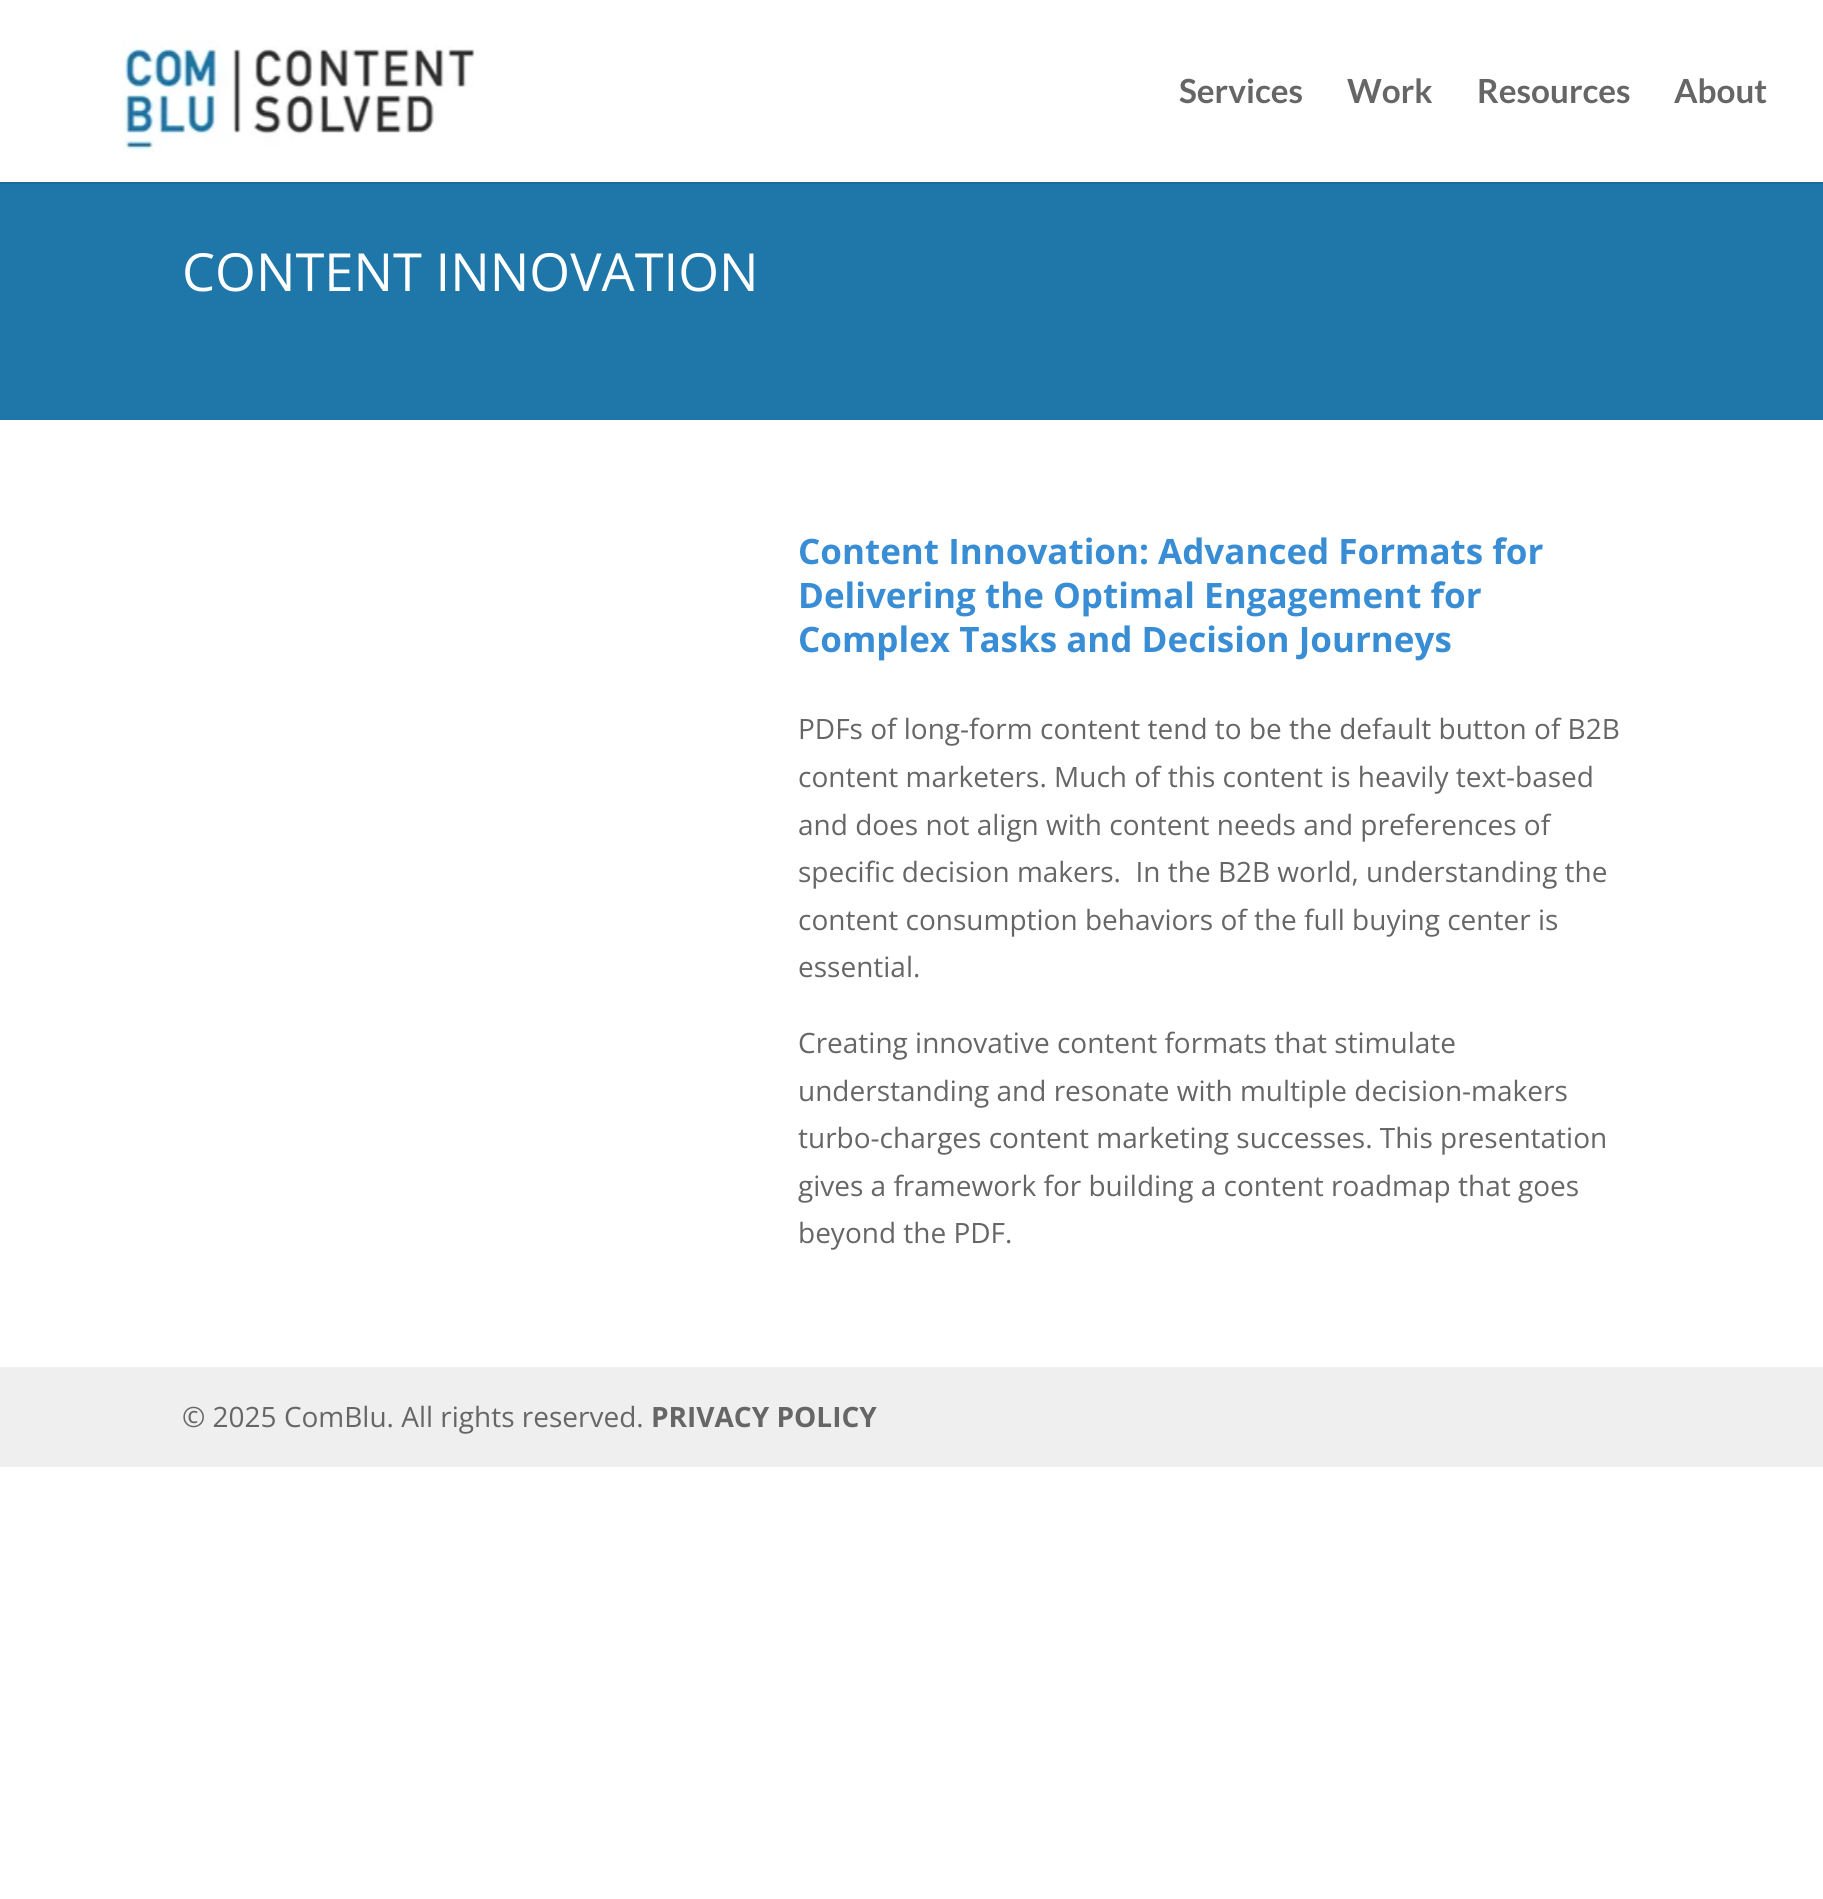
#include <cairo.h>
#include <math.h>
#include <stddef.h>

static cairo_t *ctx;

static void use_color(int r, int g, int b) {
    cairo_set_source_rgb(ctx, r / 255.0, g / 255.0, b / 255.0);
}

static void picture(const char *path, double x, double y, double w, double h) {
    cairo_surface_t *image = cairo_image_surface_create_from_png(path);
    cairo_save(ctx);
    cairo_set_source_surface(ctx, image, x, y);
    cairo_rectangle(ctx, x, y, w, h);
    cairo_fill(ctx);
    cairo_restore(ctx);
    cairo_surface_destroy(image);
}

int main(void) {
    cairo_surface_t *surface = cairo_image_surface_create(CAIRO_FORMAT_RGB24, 1823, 1899);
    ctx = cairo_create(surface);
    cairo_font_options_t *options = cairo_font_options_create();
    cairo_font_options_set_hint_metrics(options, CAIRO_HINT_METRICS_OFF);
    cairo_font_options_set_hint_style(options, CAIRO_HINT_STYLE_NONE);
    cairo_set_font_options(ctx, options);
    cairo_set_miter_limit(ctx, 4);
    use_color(255, 255, 255);
    cairo_paint(ctx);
    use_color(28, 106, 152);
    cairo_new_path(ctx);
    cairo_move_to(ctx, 0, 182);
    cairo_line_to(ctx, 0, 184);
    cairo_line_to(ctx, 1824, 184);
    cairo_line_to(ctx, 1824, 2);
    cairo_line_to(ctx, 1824, 182);
    cairo_close_path(ctx);
    cairo_fill(ctx);
    picture("img1.png", 122, 39, 353, 113);
    cairo_select_font_face(ctx, "Lato", CAIRO_FONT_SLANT_NORMAL, CAIRO_FONT_WEIGHT_BOLD);
    cairo_set_font_size(ctx, 33.25);
    use_color(102, 102, 102);
    cairo_move_to(ctx, 1179, 103);
    cairo_show_text(ctx, "Services");
    cairo_move_to(ctx, 1347, 103);
    cairo_show_text(ctx, "Work");
    cairo_move_to(ctx, 1477, 103);
    cairo_show_text(ctx, "Resources");
    cairo_move_to(ctx, 1674, 103);
    cairo_show_text(ctx, "About");
    use_color(31, 118, 169);
    cairo_rectangle(ctx, 0, 184, 1823, 236);
    cairo_fill(ctx);
    cairo_select_font_face(ctx, "Open Sans", CAIRO_FONT_SLANT_NORMAL, CAIRO_FONT_WEIGHT_NORMAL);
    cairo_set_font_size(ctx, 52.5);
    use_color(255, 255, 255);
    cairo_move_to(ctx, 182, 291);
    cairo_show_text(ctx, "CONTENT INNOVATION");
    cairo_select_font_face(ctx, "Open Sans", CAIRO_FONT_SLANT_NORMAL, CAIRO_FONT_WEIGHT_BOLD);
    cairo_set_font_size(ctx, 35);
    use_color(56, 141, 213);
    cairo_move_to(ctx, 798, 564);
    cairo_show_text(ctx, "Content Innovation: Advanced Formats for");
    cairo_move_to(ctx, 798, 608);
    cairo_show_text(ctx, "Delivering the Optimal Engagement for");
    cairo_move_to(ctx, 798, 652);
    cairo_show_text(ctx, "Complex Tasks and Decision Journeys");
    cairo_select_font_face(ctx, "Open Sans", CAIRO_FONT_SLANT_NORMAL, CAIRO_FONT_WEIGHT_NORMAL);
    cairo_set_font_size(ctx, 28);
    use_color(102, 102, 102);
    cairo_move_to(ctx, 798, 739);
    cairo_show_text(ctx, "PDFs of long-form content tend to be the default button of B2B");
    cairo_move_to(ctx, 798, 787);
    cairo_show_text(ctx, "content marketers. Much of this content is heavily text-based");
    cairo_move_to(ctx, 798, 835);
    cairo_show_text(ctx, "and does not align with content needs and preferences of");
    cairo_move_to(ctx, 798, 882);
    cairo_show_text(ctx, "specific decision makers.  In the B2B world, understanding the");
    cairo_move_to(ctx, 798, 930);
    cairo_show_text(ctx, "content consumption behaviors of the full buying center is");
    cairo_move_to(ctx, 798, 977);
    cairo_show_text(ctx, "essential.");
    cairo_move_to(ctx, 798, 1053);
    cairo_show_text(ctx, "Creating innovative content formats that stimulate");
    cairo_move_to(ctx, 798, 1101);
    cairo_show_text(ctx, "understanding and resonate with multiple decision-makers");
    cairo_move_to(ctx, 798, 1148);
    cairo_show_text(ctx, "turbo-charges content marketing successes. This presentation");
    cairo_move_to(ctx, 798, 1196);
    cairo_show_text(ctx, "gives a framework for building a content roadmap that goes");
    cairo_move_to(ctx, 798, 1243);
    cairo_show_text(ctx, "beyond the PDF.");
    use_color(239, 239, 239);
    cairo_rectangle(ctx, 0, 1367, 1823, 100);
    cairo_fill(ctx);
    use_color(102, 102, 102);
    cairo_move_to(ctx, 182, 1427);
    cairo_show_text(ctx, "© 2025 ComBlu. All rights reserved.");
    cairo_select_font_face(ctx, "Open Sans", CAIRO_FONT_SLANT_NORMAL, CAIRO_FONT_WEIGHT_BOLD);
    cairo_move_to(ctx, 651, 1427);
    cairo_show_text(ctx, "PRIVACY POLICY");
    cairo_surface_write_to_png(surface, "result.png");
    cairo_font_options_destroy(options);
    cairo_destroy(ctx);
    cairo_surface_destroy(surface);
    return 0;
}
